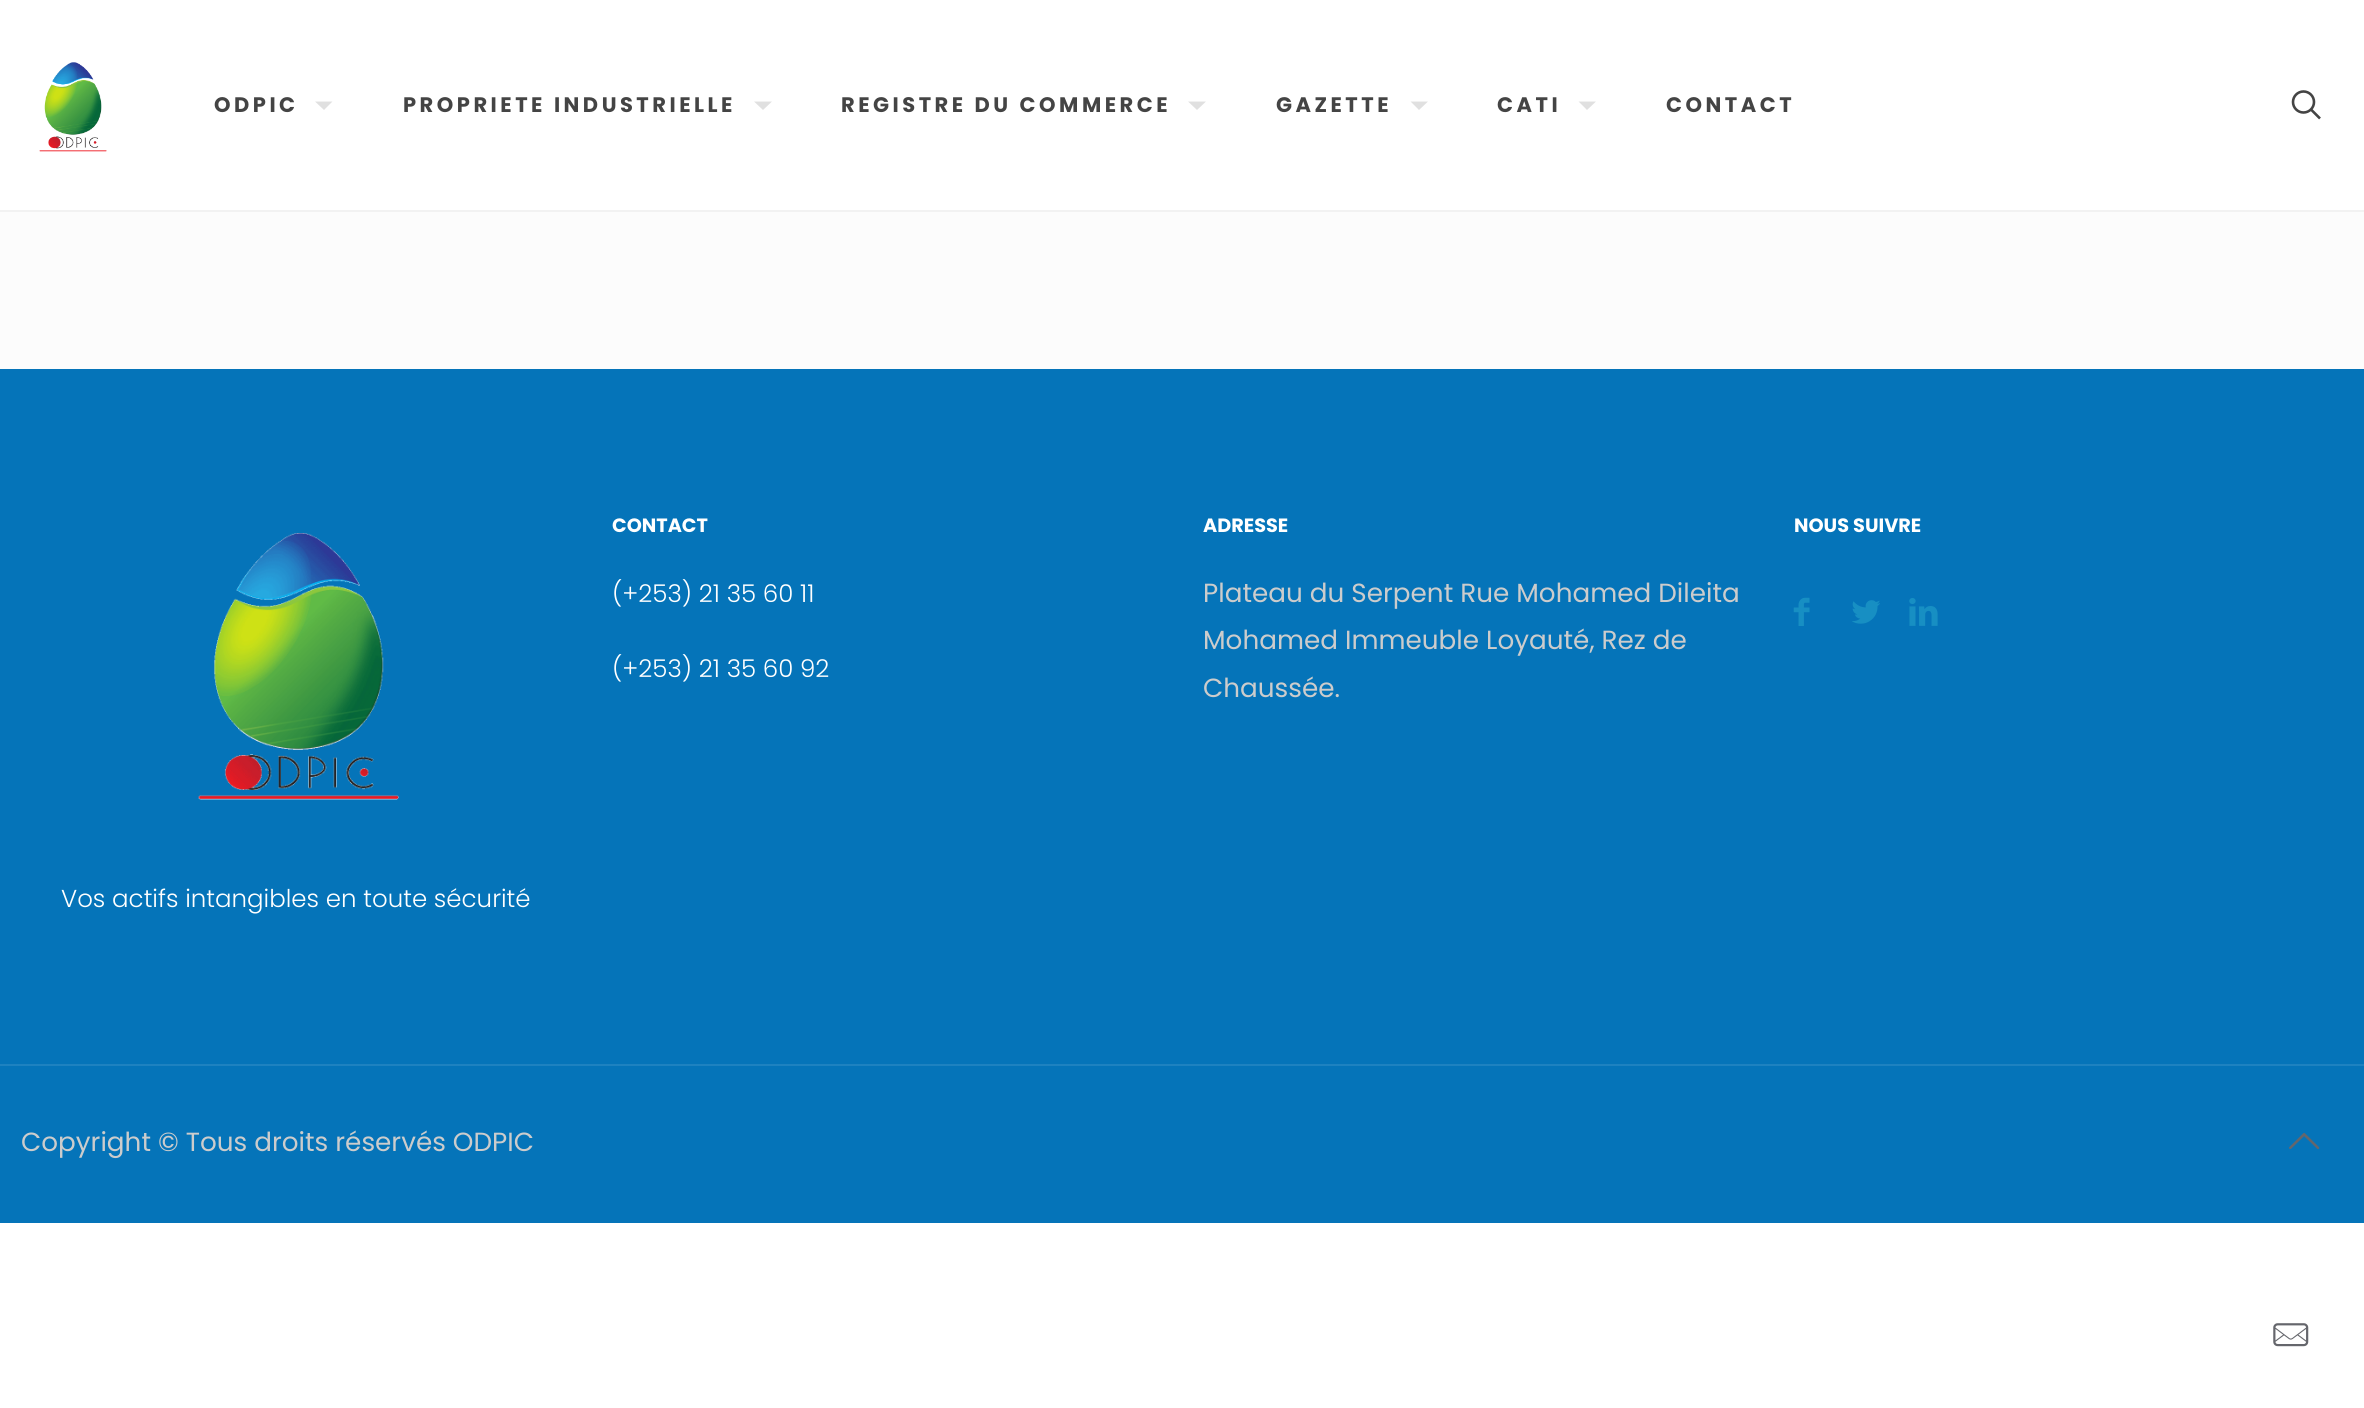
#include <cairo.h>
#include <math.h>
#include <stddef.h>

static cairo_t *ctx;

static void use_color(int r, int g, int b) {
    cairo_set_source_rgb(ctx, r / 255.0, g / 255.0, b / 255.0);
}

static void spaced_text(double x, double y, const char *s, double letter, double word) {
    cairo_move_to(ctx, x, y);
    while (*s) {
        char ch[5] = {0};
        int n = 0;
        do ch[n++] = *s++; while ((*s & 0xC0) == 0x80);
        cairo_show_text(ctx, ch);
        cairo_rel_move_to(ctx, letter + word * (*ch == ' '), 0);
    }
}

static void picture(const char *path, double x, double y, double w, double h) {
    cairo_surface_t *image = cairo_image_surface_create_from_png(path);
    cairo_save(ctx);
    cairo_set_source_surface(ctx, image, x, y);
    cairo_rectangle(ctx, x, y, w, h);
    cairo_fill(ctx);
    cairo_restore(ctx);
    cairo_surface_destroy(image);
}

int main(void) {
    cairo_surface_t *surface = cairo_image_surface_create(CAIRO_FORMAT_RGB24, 2364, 1408);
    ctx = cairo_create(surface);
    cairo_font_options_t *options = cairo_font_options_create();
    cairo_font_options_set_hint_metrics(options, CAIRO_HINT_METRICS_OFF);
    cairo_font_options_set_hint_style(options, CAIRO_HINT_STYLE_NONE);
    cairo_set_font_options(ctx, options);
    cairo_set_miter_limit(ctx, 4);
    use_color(255, 255, 255);
    cairo_paint(ctx);
    use_color(252, 252, 252);
    cairo_rectangle(ctx, 0, 212, 2364, 157);
    cairo_fill(ctx);
    use_color(242, 242, 242);
    cairo_rectangle(ctx, 0, 210, 2364, 2);
    cairo_fill(ctx);
    picture("img1.png", 39, 62, 68, 90);
    cairo_select_font_face(ctx, "Poppins", CAIRO_FONT_SLANT_NORMAL, CAIRO_FONT_WEIGHT_BOLD);
    cairo_set_font_size(ctx, 21);
    use_color(68, 68, 68);
    spaced_text(214, 112, "ODPIC", 3.5, 0);
    use_color(224, 224, 224);
    cairo_new_path(ctx);
    cairo_move_to(ctx, 315, 101.5);
    cairo_line_to(ctx, 332.5, 101.5);
    cairo_line_to(ctx, 324, 110);
    cairo_close_path(ctx);
    cairo_fill(ctx);
    use_color(68, 68, 68);
    spaced_text(403, 112, "PROPRIETE INDUSTRIELLE", 3.5, 0);
    use_color(224, 224, 224);
    cairo_new_path(ctx);
    cairo_move_to(ctx, 754, 101.5);
    cairo_line_to(ctx, 772, 101.5);
    cairo_line_to(ctx, 763, 110);
    cairo_close_path(ctx);
    cairo_fill(ctx);
    use_color(68, 68, 68);
    spaced_text(841, 112, "REGISTRE DU COMMERCE", 3.5, 0);
    use_color(224, 224, 224);
    cairo_new_path(ctx);
    cairo_move_to(ctx, 1188, 101.5);
    cairo_line_to(ctx, 1206, 101.5);
    cairo_line_to(ctx, 1197, 110);
    cairo_close_path(ctx);
    cairo_fill(ctx);
    use_color(68, 68, 68);
    spaced_text(1276, 112, "GAZETTE", 3.5, 0);
    use_color(224, 224, 224);
    cairo_new_path(ctx);
    cairo_move_to(ctx, 1410.5, 101.5);
    cairo_line_to(ctx, 1428, 101.5);
    cairo_line_to(ctx, 1419, 110);
    cairo_close_path(ctx);
    cairo_fill(ctx);
    use_color(68, 68, 68);
    spaced_text(1497, 112, "CATI", 3.5, 0);
    use_color(224, 224, 224);
    cairo_new_path(ctx);
    cairo_move_to(ctx, 1578.5, 101.5);
    cairo_line_to(ctx, 1596, 101.5);
    cairo_line_to(ctx, 1587, 110);
    cairo_close_path(ctx);
    cairo_fill(ctx);
    use_color(68, 68, 68);
    spaced_text(1666, 112, "CONTACT", 3.5, 0);
    cairo_new_path(ctx);
    cairo_arc(ctx, 2303.5, 102, 10.5, 0, 2 * M_PI);
    cairo_set_line_width(ctx, 2.6);
    cairo_stroke(ctx);
    cairo_new_path(ctx);
    cairo_move_to(ctx, 2311, 109.5);
    cairo_line_to(ctx, 2320, 118.5);
    cairo_stroke(ctx);
    use_color(5, 116, 185);
    cairo_rectangle(ctx, 0, 369, 2364, 854);
    cairo_fill(ctx);
    cairo_set_font_size(ctx, 19.25);
    use_color(255, 255, 255);
    cairo_move_to(ctx, 612, 532);
    cairo_show_text(ctx, "CONTACT");
    cairo_select_font_face(ctx, "Poppins Light", CAIRO_FONT_SLANT_NORMAL, CAIRO_FONT_WEIGHT_NORMAL);
    cairo_set_font_size(ctx, 24.5);
    cairo_move_to(ctx, 612, 602);
    cairo_show_text(ctx, "(+253) 21 35 60 11");
    cairo_move_to(ctx, 612, 677);
    cairo_show_text(ctx, "(+253) 21 35 60 92");
    cairo_select_font_face(ctx, "Poppins", CAIRO_FONT_SLANT_NORMAL, CAIRO_FONT_WEIGHT_BOLD);
    cairo_set_font_size(ctx, 19.25);
    cairo_move_to(ctx, 1203, 532);
    cairo_show_text(ctx, "ADRESSE");
    cairo_select_font_face(ctx, "Poppins", CAIRO_FONT_SLANT_NORMAL, CAIRO_FONT_WEIGHT_NORMAL);
    cairo_set_font_size(ctx, 26.25);
    use_color(204, 204, 204);
    cairo_move_to(ctx, 1203, 602);
    cairo_show_text(ctx, "Plateau du Serpent Rue Mohamed Dileita");
    cairo_move_to(ctx, 1203, 649);
    cairo_show_text(ctx, "Mohamed Immeuble Loyauté, Rez de");
    cairo_move_to(ctx, 1203, 697);
    cairo_show_text(ctx, "Chaussée.");
    cairo_select_font_face(ctx, "Poppins", CAIRO_FONT_SLANT_NORMAL, CAIRO_FONT_WEIGHT_BOLD);
    cairo_set_font_size(ctx, 19.25);
    use_color(255, 255, 255);
    cairo_move_to(ctx, 1794, 532);
    cairo_show_text(ctx, "NOUS SUIVRE");
    picture("img2.png", 1793, 597, 17, 29);
    picture("img3.png", 1852, 600, 28, 24);
    picture("img4.png", 1909, 598, 29, 28);
    picture("img5.png", 198, 533, 201, 267);
    cairo_select_font_face(ctx, "Poppins Light", CAIRO_FONT_SLANT_NORMAL, CAIRO_FONT_WEIGHT_NORMAL);
    cairo_set_font_size(ctx, 24.5);
    cairo_move_to(ctx, 61, 907);
    cairo_show_text(ctx, "Vos actifs intangibles en toute sécurité");
    use_color(30, 130, 192);
    cairo_rectangle(ctx, 0, 1064, 2364, 2);
    cairo_fill(ctx);
    cairo_select_font_face(ctx, "Poppins", CAIRO_FONT_SLANT_NORMAL, CAIRO_FONT_WEIGHT_NORMAL);
    cairo_set_font_size(ctx, 26.25);
    use_color(204, 204, 204);
    cairo_move_to(ctx, 21, 1151);
    cairo_show_text(ctx, "Copyright © Tous droits réservés ODPIC");
    picture("img6.png", 2289, 1132, 31, 17);
    picture("img7.png", 2273, 1323, 36, 24);
    cairo_surface_write_to_png(surface, "result.png");
    cairo_font_options_destroy(options);
    cairo_destroy(ctx);
    cairo_surface_destroy(surface);
    return 0;
}
